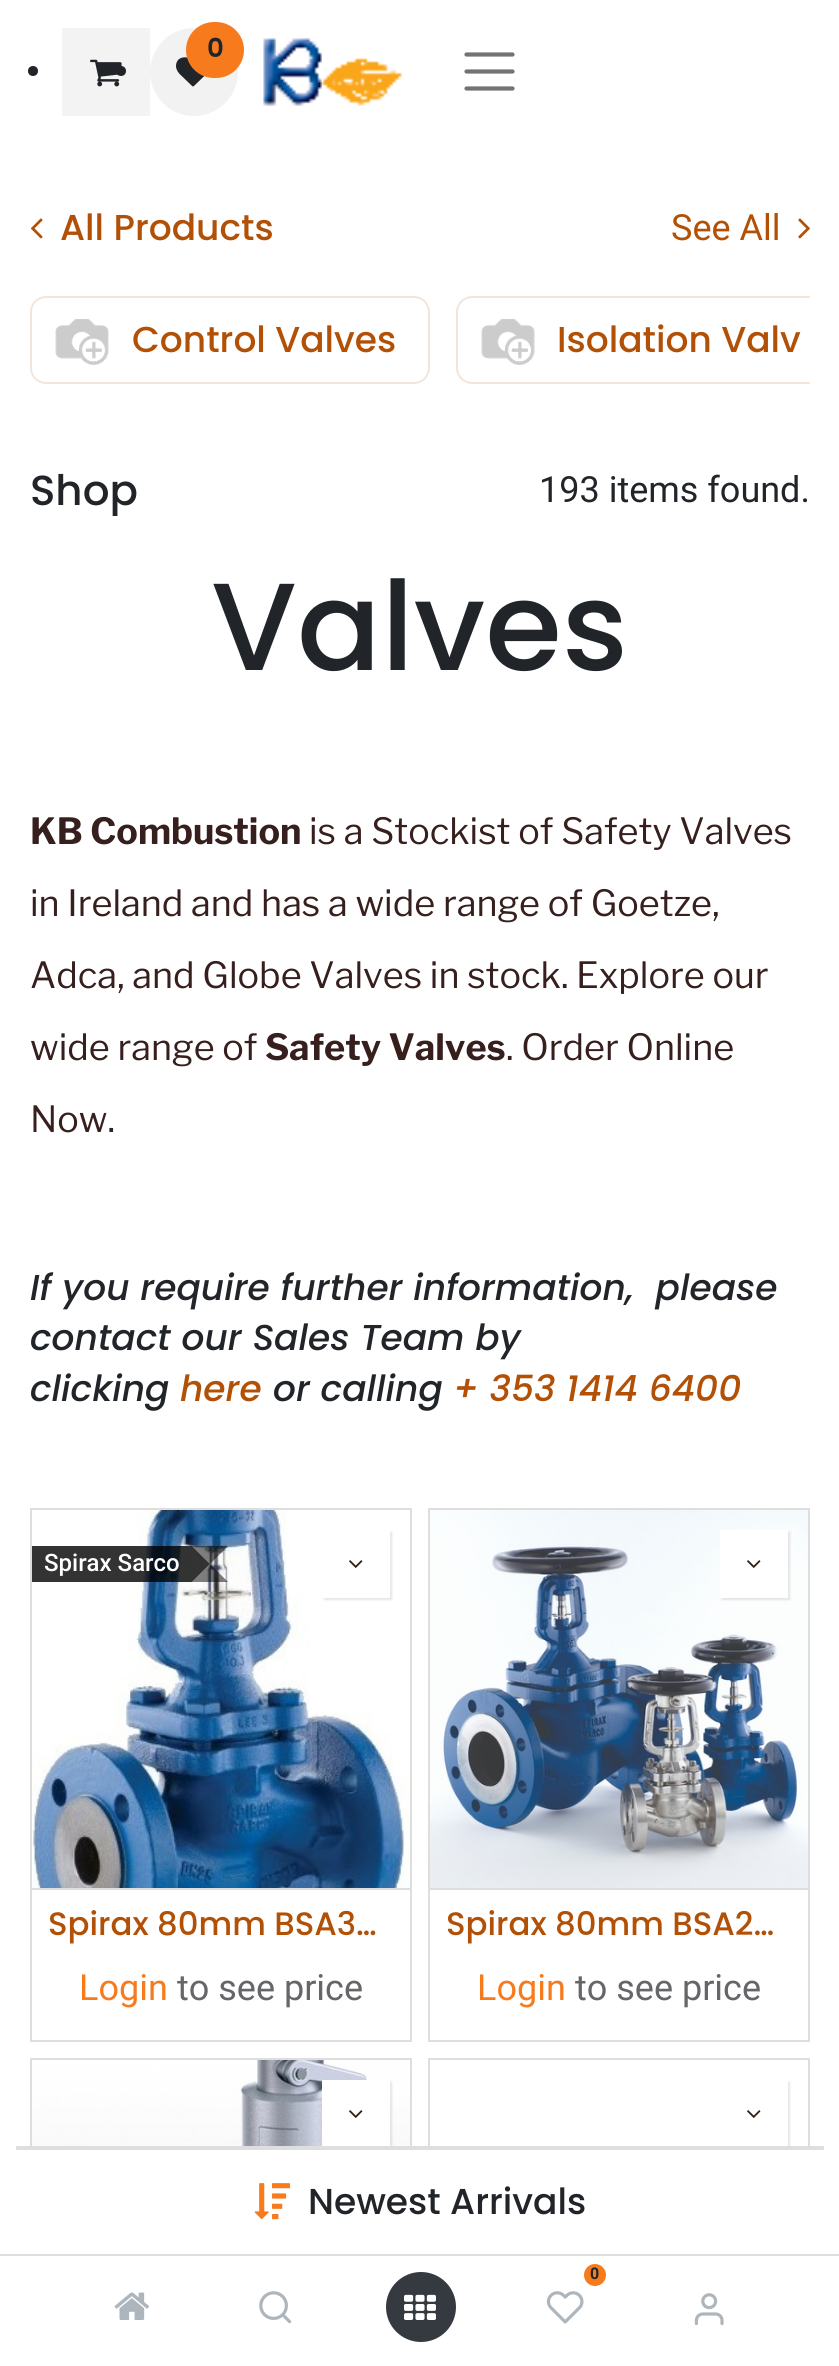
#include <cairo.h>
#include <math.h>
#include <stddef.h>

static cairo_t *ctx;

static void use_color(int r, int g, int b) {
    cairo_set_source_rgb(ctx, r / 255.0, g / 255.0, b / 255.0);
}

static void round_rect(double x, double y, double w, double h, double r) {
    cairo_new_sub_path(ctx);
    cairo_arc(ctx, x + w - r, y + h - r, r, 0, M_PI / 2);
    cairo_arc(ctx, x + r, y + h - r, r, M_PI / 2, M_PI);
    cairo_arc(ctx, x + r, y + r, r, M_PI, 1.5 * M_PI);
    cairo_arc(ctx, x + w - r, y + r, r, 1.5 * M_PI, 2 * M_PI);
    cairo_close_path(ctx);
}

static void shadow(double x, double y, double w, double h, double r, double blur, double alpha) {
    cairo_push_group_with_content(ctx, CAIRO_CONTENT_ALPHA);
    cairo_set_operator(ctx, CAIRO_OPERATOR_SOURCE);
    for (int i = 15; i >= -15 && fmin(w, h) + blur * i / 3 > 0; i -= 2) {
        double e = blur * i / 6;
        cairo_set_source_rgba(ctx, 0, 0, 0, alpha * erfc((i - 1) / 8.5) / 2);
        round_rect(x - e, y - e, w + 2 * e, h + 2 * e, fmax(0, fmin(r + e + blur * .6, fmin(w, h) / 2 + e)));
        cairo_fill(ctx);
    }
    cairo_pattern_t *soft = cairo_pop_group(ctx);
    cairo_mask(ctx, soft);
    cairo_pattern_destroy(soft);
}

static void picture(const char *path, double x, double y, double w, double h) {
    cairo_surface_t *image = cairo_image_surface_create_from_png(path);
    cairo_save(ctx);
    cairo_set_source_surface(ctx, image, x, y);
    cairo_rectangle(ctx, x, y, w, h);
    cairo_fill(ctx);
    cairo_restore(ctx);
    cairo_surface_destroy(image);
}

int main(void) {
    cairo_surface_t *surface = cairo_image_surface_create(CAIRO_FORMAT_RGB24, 839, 2366);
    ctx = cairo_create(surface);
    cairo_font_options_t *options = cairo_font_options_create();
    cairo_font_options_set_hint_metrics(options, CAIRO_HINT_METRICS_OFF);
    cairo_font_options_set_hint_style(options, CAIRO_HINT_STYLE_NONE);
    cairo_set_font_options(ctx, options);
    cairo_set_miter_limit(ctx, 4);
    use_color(255, 255, 255);
    cairo_paint(ctx);
    use_color(33, 37, 41);
    cairo_arc(ctx, 33, 71, 5, 0, 2 * M_PI);
    cairo_fill(ctx);
    cairo_arc(ctx, 121, 71, 5, 0, 2 * M_PI);
    cairo_fill(ctx);
    cairo_set_source_rgba(ctx, 0, 0, 0, 0.05);
    cairo_rectangle(ctx, 62, 28, 88, 88);
    cairo_fill(ctx);
    picture("img1.png", 90, 59, 32, 28);
    use_color(242, 242, 242);
    cairo_arc(ctx, 194, 72, 44, 0, 2 * M_PI);
    cairo_fill(ctx);
    picture("img2.png", 176, 57, 29, 30);
    use_color(247, 123, 29);
    round_rect(186, 22, 58, 56, 28);
    cairo_fill(ctx);
    cairo_select_font_face(ctx, "Poppins SemiBold", CAIRO_FONT_SLANT_NORMAL, CAIRO_FONT_WEIGHT_NORMAL);
    cairo_set_font_size(ctx, 26);
    use_color(33, 37, 41);
    cairo_move_to(ctx, 207, 57);
    cairo_show_text(ctx, "0");
    picture("img3.png", 263, 38, 140, 68);
    cairo_new_path(ctx);
    cairo_move_to(ctx, 466.5, 54.5);
    cairo_line_to(ctx, 512.5, 54.5);
    cairo_move_to(ctx, 466.5, 71.5);
    cairo_line_to(ctx, 512.5, 71.5);
    cairo_move_to(ctx, 466.5, 88.5);
    cairo_line_to(ctx, 512.5, 88.5);
    use_color(115, 115, 115);
    cairo_set_line_width(ctx, 4.2);
    cairo_set_line_cap(ctx, CAIRO_LINE_CAP_ROUND);
    cairo_stroke(ctx);
    picture("img4.png", 30, 218, 13, 21);
    cairo_select_font_face(ctx, "Poppins Medium", CAIRO_FONT_SLANT_NORMAL, CAIRO_FONT_WEIGHT_NORMAL);
    cairo_set_font_size(ctx, 36);
    use_color(178, 80, 6);
    cairo_move_to(ctx, 60, 240);
    cairo_show_text(ctx, "All Products");
    cairo_select_font_face(ctx, "Roboto", CAIRO_FONT_SLANT_NORMAL, CAIRO_FONT_WEIGHT_NORMAL);
    cairo_move_to(ctx, 671, 240);
    cairo_show_text(ctx, "See All");
    picture("img5.png", 798, 218, 12, 21);
    round_rect(31, 297, 398, 86, 15);
    use_color(243, 229, 218);
    cairo_set_line_width(ctx, 2);
    cairo_set_line_cap(ctx, CAIRO_LINE_CAP_BUTT);
    cairo_stroke(ctx);
    picture("img6.png", 55, 319, 54, 46);
    cairo_select_font_face(ctx, "Poppins Medium", CAIRO_FONT_SLANT_NORMAL, CAIRO_FONT_WEIGHT_NORMAL);
    use_color(178, 80, 6);
    cairo_move_to(ctx, 132, 352);
    cairo_show_text(ctx, "Control Valves");
    cairo_save(ctx);
    cairo_rectangle(ctx, 30, 296, 780, 110);
    cairo_clip(ctx);
    round_rect(457, 297, 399, 86, 15);
    use_color(243, 229, 218);
    cairo_stroke(ctx);
    cairo_restore(ctx);
    picture("img6.png", 481, 319, 54, 46);
    cairo_move_to(ctx, 557, 352);
    cairo_show_text(ctx, "Isolation Valv");
    cairo_set_font_size(ctx, 42);
    use_color(33, 37, 41);
    cairo_move_to(ctx, 30, 505);
    cairo_show_text(ctx, "Shop");
    cairo_select_font_face(ctx, "Roboto", CAIRO_FONT_SLANT_NORMAL, CAIRO_FONT_WEIGHT_NORMAL);
    cairo_set_font_size(ctx, 36);
    cairo_move_to(ctx, 539, 502);
    cairo_show_text(ctx, "193 items found.");
    cairo_select_font_face(ctx, "Poppins Medium", CAIRO_FONT_SLANT_NORMAL, CAIRO_FONT_WEIGHT_NORMAL);
    cairo_set_font_size(ctx, 124);
    cairo_move_to(ctx, 211, 670);
    cairo_show_text(ctx, "Valves");
    cairo_select_font_face(ctx, "Libre Franklin", CAIRO_FONT_SLANT_NORMAL, CAIRO_FONT_WEIGHT_BOLD);
    cairo_set_font_size(ctx, 36);
    use_color(54, 31, 29);
    cairo_move_to(ctx, 30, 844);
    cairo_show_text(ctx, "KB Combustion");
    cairo_select_font_face(ctx, "Libre Franklin", CAIRO_FONT_SLANT_NORMAL, CAIRO_FONT_WEIGHT_NORMAL);
    cairo_move_to(ctx, 309, 844);
    cairo_show_text(ctx, "is a Stockist of Safety Valves");
    cairo_move_to(ctx, 30, 916);
    cairo_show_text(ctx, "in Ireland and has a wide range of Goetze,");
    cairo_move_to(ctx, 30, 988);
    cairo_show_text(ctx, "Adca, and Globe Valves in stock. Explore our");
    cairo_move_to(ctx, 30, 1060);
    cairo_show_text(ctx, "wide range of");
    cairo_select_font_face(ctx, "Libre Franklin", CAIRO_FONT_SLANT_NORMAL, CAIRO_FONT_WEIGHT_BOLD);
    cairo_move_to(ctx, 265, 1060);
    cairo_show_text(ctx, "Safety Valves");
    cairo_select_font_face(ctx, "Libre Franklin", CAIRO_FONT_SLANT_NORMAL, CAIRO_FONT_WEIGHT_NORMAL);
    cairo_move_to(ctx, 506, 1060);
    cairo_show_text(ctx, ". Order Online");
    cairo_move_to(ctx, 30, 1132);
    cairo_show_text(ctx, "Now.");
    cairo_select_font_face(ctx, "Poppins Medium", CAIRO_FONT_SLANT_ITALIC, CAIRO_FONT_WEIGHT_NORMAL);
    use_color(33, 37, 41);
    cairo_move_to(ctx, 30, 1300);
    cairo_show_text(ctx, "If you require further information,  please");
    cairo_move_to(ctx, 30, 1350);
    cairo_show_text(ctx, "contact our Sales Team by");
    cairo_move_to(ctx, 30, 1401);
    cairo_show_text(ctx, "clicking");
    use_color(178, 80, 6);
    cairo_move_to(ctx, 180, 1401);
    cairo_show_text(ctx, "here");
    use_color(33, 37, 41);
    cairo_move_to(ctx, 273, 1401);
    cairo_show_text(ctx, "or calling");
    use_color(178, 80, 6);
    cairo_move_to(ctx, 453, 1401);
    cairo_show_text(ctx, "+ 353 1414 6400");
    cairo_rectangle(ctx, 31, 1509, 380, 532);
    use_color(222, 222, 223);
    cairo_stroke(ctx);
    picture("img7.png", 32, 1510, 378, 378);
    cairo_set_source_rgba(ctx, 0, 0, 0, 0.8);
    cairo_rectangle(ctx, 32, 1546, 160, 36);
    cairo_fill(ctx);
    cairo_select_font_face(ctx, "Roboto Medium", CAIRO_FONT_SLANT_NORMAL, CAIRO_FONT_WEIGHT_NORMAL);
    cairo_set_font_size(ctx, 24);
    use_color(255, 255, 255);
    cairo_move_to(ctx, 44, 1571);
    cairo_show_text(ctx, "Spirax Sarco");
    cairo_set_source_rgba(ctx, 0, 0, 0, 0.5);
    cairo_new_path(ctx);
    cairo_move_to(ctx, 192, 1546);
    cairo_line_to(ctx, 228, 1546);
    cairo_line_to(ctx, 210, 1564);
    cairo_close_path(ctx);
    cairo_move_to(ctx, 228, 1582);
    cairo_line_to(ctx, 192, 1582);
    cairo_line_to(ctx, 210, 1564);
    cairo_close_path(ctx);
    cairo_fill(ctx);
    cairo_set_source_rgba(ctx, 0, 0, 0, 0.8);
    cairo_new_path(ctx);
    cairo_move_to(ctx, 192, 1582);
    cairo_line_to(ctx, 192, 1546);
    cairo_line_to(ctx, 210, 1564);
    cairo_close_path(ctx);
    cairo_fill(ctx);
    cairo_save(ctx);
    cairo_set_fill_rule(ctx, CAIRO_FILL_RULE_EVEN_ODD);
    cairo_new_path(ctx);
    cairo_move_to(ctx, 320, 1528);
    cairo_line_to(ctx, 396, 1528);
    cairo_line_to(ctx, 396, 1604);
    cairo_line_to(ctx, 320, 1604);
    cairo_close_path(ctx);
    cairo_move_to(ctx, 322, 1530);
    cairo_line_to(ctx, 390, 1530);
    cairo_line_to(ctx, 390, 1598);
    cairo_line_to(ctx, 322, 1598);
    cairo_close_path(ctx);
    cairo_clip(ctx);
    use_color(0, 0, 0);
    shadow(324, 1532, 68, 68, 0, 1, 0.1);
    cairo_restore(ctx);
    picture("img8.png", 349, 1560, 14, 8);
    use_color(222, 222, 223);
    cairo_rectangle(ctx, 32, 1888, 378, 2);
    cairo_fill(ctx);
    cairo_select_font_face(ctx, "Poppins Medium", CAIRO_FONT_SLANT_NORMAL, CAIRO_FONT_WEIGHT_NORMAL);
    cairo_set_font_size(ctx, 32.4);
    use_color(178, 80, 6);
    cairo_move_to(ctx, 48, 1935);
    cairo_show_text(ctx, "Spirax 80mm BSA3…");
    cairo_select_font_face(ctx, "Roboto", CAIRO_FONT_SLANT_NORMAL, CAIRO_FONT_WEIGHT_NORMAL);
    cairo_set_font_size(ctx, 36);
    use_color(247, 123, 29);
    cairo_move_to(ctx, 79, 2000);
    cairo_show_text(ctx, "Login");
    use_color(100, 102, 105);
    cairo_move_to(ctx, 177, 2000);
    cairo_show_text(ctx, "to see price");
    cairo_rectangle(ctx, 429, 1509, 380, 532);
    use_color(222, 222, 223);
    cairo_stroke(ctx);
    picture("img9.png", 430, 1510, 378, 378);
    use_color(0, 0, 0);
    shadow(722, 1532, 68, 68, 0, 1, 0.1);
    use_color(255, 255, 255);
    cairo_rectangle(ctx, 720, 1530, 68, 68);
    cairo_fill(ctx);
    picture("img8.png", 747, 1560, 14, 8);
    use_color(222, 222, 223);
    cairo_rectangle(ctx, 430, 1888, 378, 2);
    cairo_fill(ctx);
    cairo_select_font_face(ctx, "Poppins Medium", CAIRO_FONT_SLANT_NORMAL, CAIRO_FONT_WEIGHT_NORMAL);
    cairo_set_font_size(ctx, 32.4);
    use_color(178, 80, 6);
    cairo_move_to(ctx, 446, 1935);
    cairo_show_text(ctx, "Spirax 80mm BSA2…");
    cairo_select_font_face(ctx, "Roboto", CAIRO_FONT_SLANT_NORMAL, CAIRO_FONT_WEIGHT_NORMAL);
    cairo_set_font_size(ctx, 36);
    use_color(247, 123, 29);
    cairo_move_to(ctx, 477, 2000);
    cairo_show_text(ctx, "Login");
    use_color(100, 102, 105);
    cairo_move_to(ctx, 575, 2000);
    cairo_show_text(ctx, "to see price");
    cairo_rectangle(ctx, 31, 2059, 380, 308);
    use_color(222, 222, 223);
    cairo_stroke(ctx);
    picture("img10.png", 32, 2060, 378, 86);
    use_color(0, 0, 0);
    shadow(324, 2082, 68, 68, 0, 1, 0.1);
    use_color(255, 255, 255);
    cairo_rectangle(ctx, 322, 2080, 68, 66);
    cairo_fill(ctx);
    picture("img8.png", 349, 2110, 14, 8);
    cairo_rectangle(ctx, 429, 2059, 380, 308);
    use_color(222, 222, 223);
    cairo_stroke(ctx);
    cairo_save(ctx);
    cairo_rectangle(ctx, 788, 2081, 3, 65);
    cairo_clip(ctx);
    use_color(0, 0, 0);
    shadow(722, 2082, 68, 68, 0, 1, 0.1);
    cairo_restore(ctx);
    picture("img8.png", 747, 2110, 14, 8);
    use_color(255, 255, 255);
    cairo_new_path(ctx);
    cairo_move_to(ctx, 32, 2146);
    cairo_line_to(ctx, 808, 2146);
    cairo_curve_to(ctx, 825.5, 2146, 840, 2160.5, 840, 2178);
    cairo_line_to(ctx, 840, 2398);
    cairo_line_to(ctx, 0, 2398);
    cairo_line_to(ctx, 0, 2178);
    cairo_curve_to(ctx, 0, 2160.5, 14.5, 2146, 32, 2146);
    cairo_close_path(ctx);
    cairo_fill(ctx);
    use_color(222, 222, 223);
    cairo_rectangle(ctx, 16, 2146, 808, 4);
    cairo_fill(ctx);
    cairo_rectangle(ctx, 0, 2254, 839, 2);
    cairo_fill(ctx);
    picture("img11.png", 254, 2183, 36, 37);
    cairo_select_font_face(ctx, "Poppins Medium", CAIRO_FONT_SLANT_NORMAL, CAIRO_FONT_WEIGHT_NORMAL);
    use_color(33, 37, 41);
    cairo_move_to(ctx, 308, 2214);
    cairo_show_text(ctx, "Newest Arrivals");
    picture("img12.png", 114, 2292, 35, 28);
    picture("img13.png", 259, 2291, 33, 33);
    use_color(52, 58, 64);
    cairo_arc(ctx, 421, 2307, 35, 0, 2 * M_PI);
    cairo_fill(ctx);
    picture("img14.png", 404, 2294, 32, 26);
    use_color(247, 123, 29);
    cairo_arc(ctx, 595, 2275, 11, 0, 2 * M_PI);
    cairo_fill(ctx);
    cairo_select_font_face(ctx, "Roboto", CAIRO_FONT_SLANT_NORMAL, CAIRO_FONT_WEIGHT_BOLD);
    cairo_set_font_size(ctx, 16);
    use_color(33, 37, 41);
    cairo_move_to(ctx, 590, 2279);
    cairo_show_text(ctx, "0");
    picture("img15.png", 546, 2291, 38, 33);
    picture("img16.png", 694, 2293, 30, 33);
    cairo_surface_write_to_png(surface, "result.png");
    cairo_font_options_destroy(options);
    cairo_destroy(ctx);
    cairo_surface_destroy(surface);
    return 0;
}
